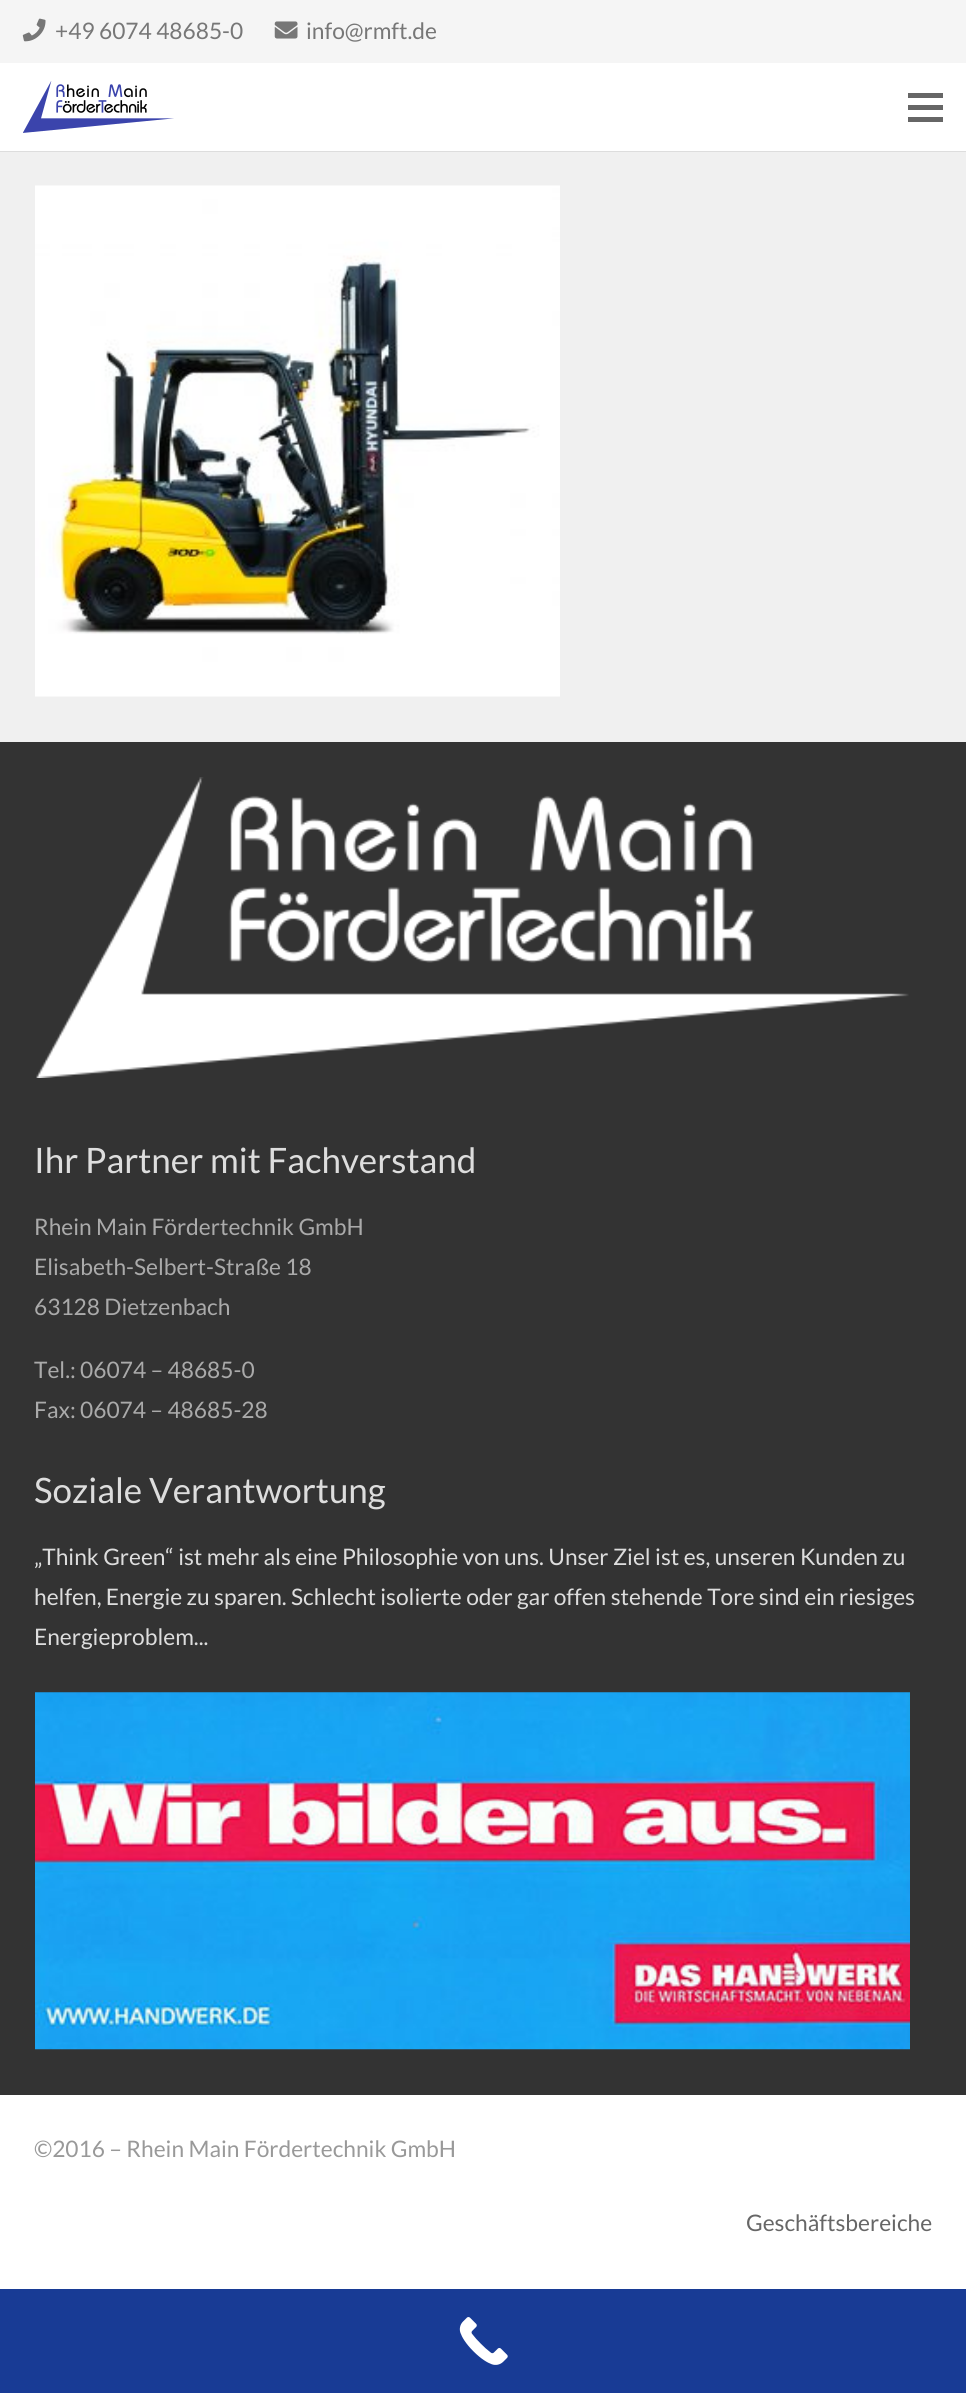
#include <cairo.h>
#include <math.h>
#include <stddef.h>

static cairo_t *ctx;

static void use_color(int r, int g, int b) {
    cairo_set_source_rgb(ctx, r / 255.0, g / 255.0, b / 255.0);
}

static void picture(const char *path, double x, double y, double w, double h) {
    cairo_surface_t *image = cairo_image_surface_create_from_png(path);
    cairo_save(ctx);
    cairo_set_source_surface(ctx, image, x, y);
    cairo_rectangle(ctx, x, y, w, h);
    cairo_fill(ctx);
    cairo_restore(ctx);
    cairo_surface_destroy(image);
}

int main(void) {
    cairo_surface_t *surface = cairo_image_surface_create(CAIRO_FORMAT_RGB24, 966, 2393);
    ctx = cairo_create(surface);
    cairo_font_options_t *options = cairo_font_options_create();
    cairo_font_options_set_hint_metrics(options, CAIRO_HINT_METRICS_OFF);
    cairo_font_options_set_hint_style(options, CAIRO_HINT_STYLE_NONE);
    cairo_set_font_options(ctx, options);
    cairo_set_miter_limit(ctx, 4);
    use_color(240, 240, 240);
    cairo_paint(ctx);
    use_color(245, 245, 245);
    cairo_rectangle(ctx, 0, 0, 966, 63);
    cairo_fill(ctx);
    picture("img1.png", 22, 18, 24, 24);
    cairo_select_font_face(ctx, "Lato", CAIRO_FONT_SLANT_NORMAL, CAIRO_FONT_WEIGHT_NORMAL);
    cairo_set_font_size(ctx, 22.75);
    use_color(119, 119, 119);
    cairo_move_to(ctx, 55, 39);
    cairo_show_text(ctx, "+49 6074 48685-0");
    picture("img2.png", 274, 21, 24, 18);
    cairo_move_to(ctx, 306, 39);
    cairo_show_text(ctx, "info@rmft.de");
    use_color(221, 221, 221);
    cairo_rectangle(ctx, 0, 151, 966, 1);
    cairo_fill(ctx);
    use_color(255, 255, 255);
    cairo_rectangle(ctx, 0, 63, 966, 88);
    cairo_fill(ctx);
    picture("img3.png", 23, 81, 151, 52);
    use_color(102, 102, 102);
    cairo_rectangle(ctx, 908, 105, 35, 5);
    cairo_fill(ctx);
    cairo_rectangle(ctx, 908, 93, 35, 5);
    cairo_fill(ctx);
    cairo_rectangle(ctx, 908, 117, 35, 5);
    cairo_fill(ctx);
    picture("img4.png", 35, 185, 525, 512);
    use_color(51, 51, 51);
    cairo_rectangle(ctx, 0, 742, 966, 1353);
    cairo_fill(ctx);
    picture("img5.png", 36, 777, 873, 301);
    cairo_set_font_size(ctx, 35);
    use_color(221, 221, 221);
    cairo_move_to(ctx, 34, 1173);
    cairo_show_text(ctx, "Ihr Partner mit Fachverstand");
    cairo_set_font_size(ctx, 22.75);
    use_color(170, 170, 170);
    cairo_move_to(ctx, 34, 1235);
    cairo_show_text(ctx, "Rhein Main Fördertechnik GmbH");
    cairo_move_to(ctx, 34, 1275);
    cairo_show_text(ctx, "Elisabeth-Selbert-Straße 18");
    cairo_move_to(ctx, 34, 1315);
    cairo_show_text(ctx, "63128 Dietzenbach");
    cairo_move_to(ctx, 34, 1378);
    cairo_show_text(ctx, "Tel.: 06074 – 48685-0");
    cairo_move_to(ctx, 34, 1418);
    cairo_show_text(ctx, "Fax: 06074 – 48685-28");
    cairo_set_font_size(ctx, 35);
    use_color(221, 221, 221);
    cairo_move_to(ctx, 34, 1503);
    cairo_show_text(ctx, "Soziale Verantwortung");
    cairo_set_font_size(ctx, 22.75);
    cairo_move_to(ctx, 34, 1565);
    cairo_show_text(ctx, "„Think Green“ ist mehr als eine Philosophie von uns. Unser Ziel ist es, unseren Kunden zu");
    cairo_move_to(ctx, 34, 1605);
    cairo_show_text(ctx, "helfen, Energie zu sparen. Schlecht isolierte oder gar offen stehende Tore sind ein riesiges");
    cairo_move_to(ctx, 34, 1645);
    cairo_show_text(ctx, "Energieproblem...");
    picture("img6.png", 35, 1692, 875, 358);
    use_color(255, 255, 255);
    cairo_rectangle(ctx, 0, 2095, 966, 194);
    cairo_fill(ctx);
    use_color(153, 153, 153);
    cairo_move_to(ctx, 34, 2157);
    cairo_show_text(ctx, "©2016 – Rhein Main Fördertechnik GmbH");
    use_color(102, 102, 102);
    cairo_move_to(ctx, 746, 2231);
    cairo_show_text(ctx, "Geschäftsbereiche");
    use_color(24, 59, 149);
    cairo_rectangle(ctx, 0, 2289, 966, 104);
    cairo_fill(ctx);
    picture("img7.png", 459, 2317, 49, 48);
    cairo_surface_write_to_png(surface, "result.png");
    cairo_font_options_destroy(options);
    cairo_destroy(ctx);
    cairo_surface_destroy(surface);
    return 0;
}
